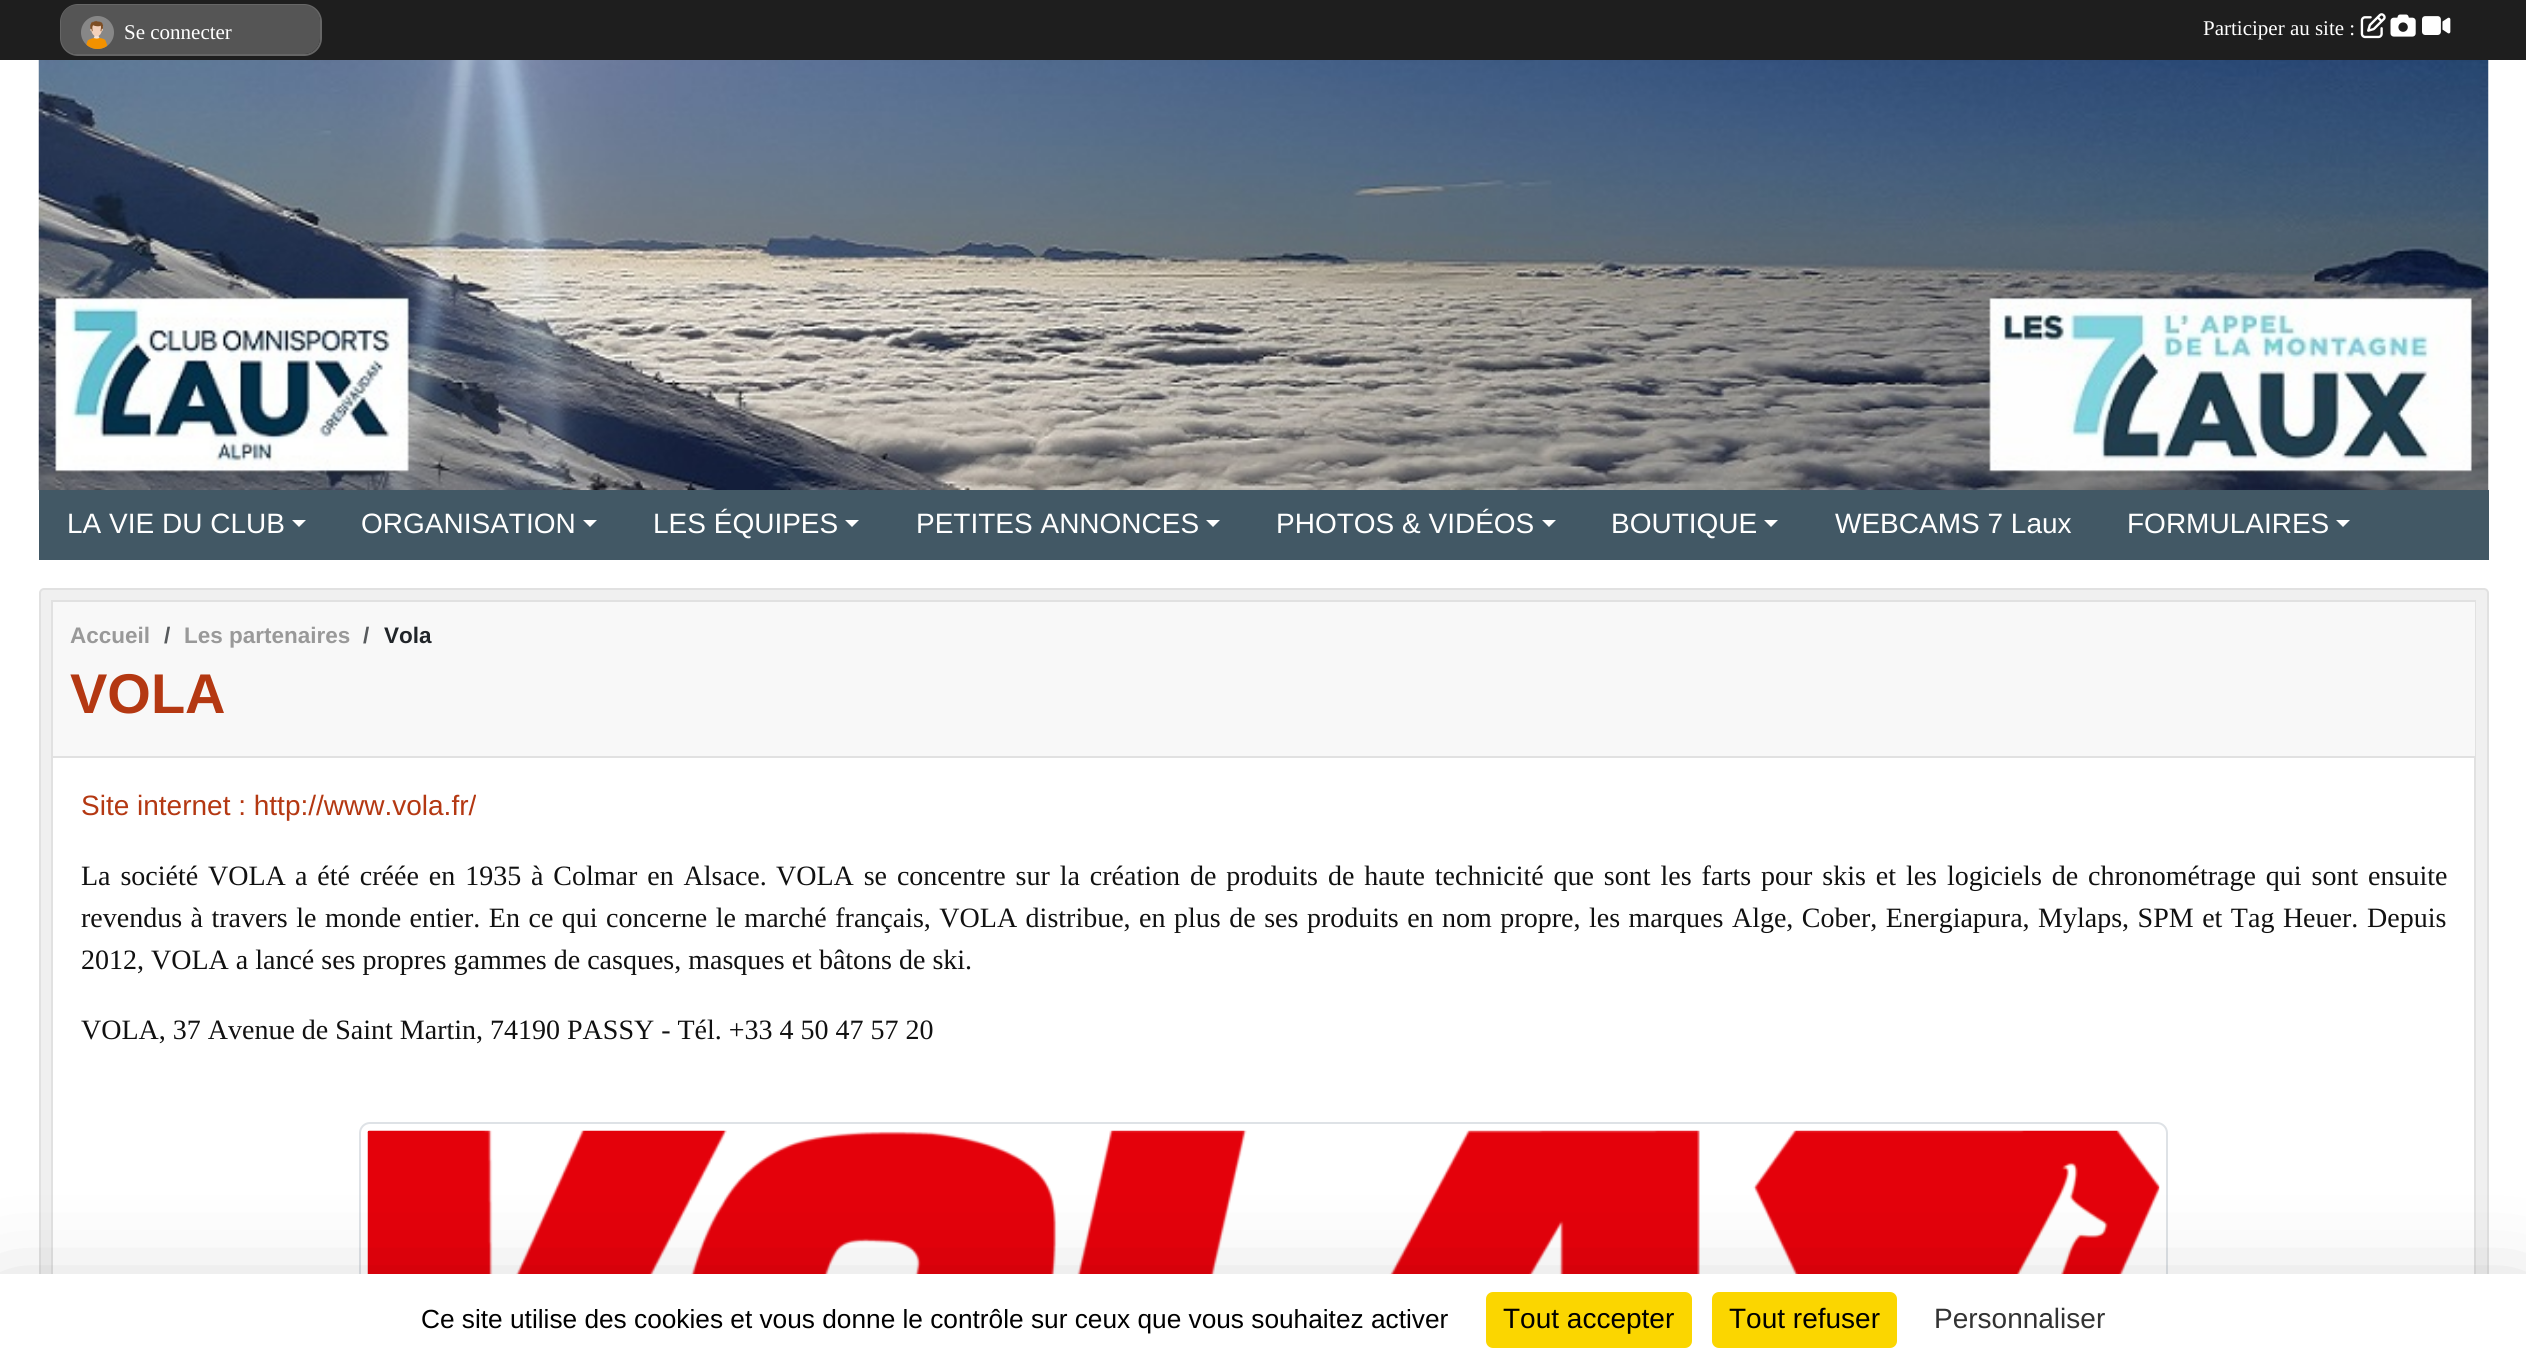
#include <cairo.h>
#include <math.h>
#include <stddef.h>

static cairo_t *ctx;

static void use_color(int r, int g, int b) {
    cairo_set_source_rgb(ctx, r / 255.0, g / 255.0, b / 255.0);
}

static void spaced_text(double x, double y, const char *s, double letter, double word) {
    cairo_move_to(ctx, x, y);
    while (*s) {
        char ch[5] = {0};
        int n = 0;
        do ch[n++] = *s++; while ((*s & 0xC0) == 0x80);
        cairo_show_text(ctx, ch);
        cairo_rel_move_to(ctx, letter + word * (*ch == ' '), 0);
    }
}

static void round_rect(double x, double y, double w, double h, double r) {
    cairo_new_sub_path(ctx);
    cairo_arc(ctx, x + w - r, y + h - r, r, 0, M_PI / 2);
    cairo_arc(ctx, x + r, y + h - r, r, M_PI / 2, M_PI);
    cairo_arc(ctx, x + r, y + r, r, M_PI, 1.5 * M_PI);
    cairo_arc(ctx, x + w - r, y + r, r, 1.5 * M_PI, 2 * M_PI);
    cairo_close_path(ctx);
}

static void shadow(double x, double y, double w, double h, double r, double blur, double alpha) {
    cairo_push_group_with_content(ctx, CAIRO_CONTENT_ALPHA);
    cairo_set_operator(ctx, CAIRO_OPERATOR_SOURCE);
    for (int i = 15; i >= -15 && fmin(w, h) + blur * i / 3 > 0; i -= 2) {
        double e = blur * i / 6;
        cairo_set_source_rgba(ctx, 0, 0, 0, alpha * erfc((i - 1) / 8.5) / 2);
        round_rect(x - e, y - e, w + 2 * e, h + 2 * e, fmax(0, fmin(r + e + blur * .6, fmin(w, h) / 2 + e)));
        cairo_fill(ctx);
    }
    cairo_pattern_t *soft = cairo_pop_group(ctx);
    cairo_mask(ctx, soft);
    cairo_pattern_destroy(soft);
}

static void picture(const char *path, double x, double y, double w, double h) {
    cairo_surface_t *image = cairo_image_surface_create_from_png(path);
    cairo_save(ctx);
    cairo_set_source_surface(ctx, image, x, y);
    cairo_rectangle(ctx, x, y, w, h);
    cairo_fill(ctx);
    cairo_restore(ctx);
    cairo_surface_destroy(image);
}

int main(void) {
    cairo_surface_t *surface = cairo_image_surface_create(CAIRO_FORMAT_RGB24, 2526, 1364);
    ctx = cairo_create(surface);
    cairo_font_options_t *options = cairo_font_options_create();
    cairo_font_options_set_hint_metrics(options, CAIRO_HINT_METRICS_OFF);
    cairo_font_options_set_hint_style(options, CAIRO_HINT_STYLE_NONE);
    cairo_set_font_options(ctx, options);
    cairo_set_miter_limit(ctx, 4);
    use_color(255, 255, 255);
    cairo_paint(ctx);
    use_color(30, 30, 30);
    cairo_rectangle(ctx, 0, 0, 2526, 60);
    cairo_fill(ctx);
    round_rect(61, 5, 260, 50, 17);
    use_color(102, 102, 102);
    cairo_stroke(ctx);
    use_color(85, 85, 85);
    round_rect(61, 5, 259, 49, 16);
    cairo_fill(ctx);
    picture("img1.png", 81, 16, 33, 33);
    cairo_select_font_face(ctx, "Liberation Serif", CAIRO_FONT_SLANT_NORMAL, CAIRO_FONT_WEIGHT_NORMAL);
    cairo_set_font_size(ctx, 21);
    use_color(255, 255, 255);
    cairo_move_to(ctx, 124, 39);
    cairo_show_text(ctx, "Se connecter");
    cairo_move_to(ctx, 2203, 35);
    cairo_show_text(ctx, "Participer au site :");
    picture("img2.png", 2360, 13, 26, 26);
    picture("img3.png", 2390, 14, 26, 23);
    picture("img4.png", 2422, 16, 29, 19);
    picture("img5.png", 38, 60, 2451, 430);
    use_color(66, 88, 101);
    cairo_rectangle(ctx, 39, 490, 2450, 70);
    cairo_fill(ctx);
    cairo_select_font_face(ctx, "Liberation Sans", CAIRO_FONT_SLANT_NORMAL, CAIRO_FONT_WEIGHT_NORMAL);
    cairo_set_font_size(ctx, 28);
    use_color(255, 255, 255);
    cairo_move_to(ctx, 67, 533);
    cairo_show_text(ctx, "LA VIE DU CLUB");
    cairo_new_path(ctx);
    cairo_move_to(ctx, 292, 520);
    cairo_line_to(ctx, 306, 520);
    cairo_line_to(ctx, 299, 527);
    cairo_close_path(ctx);
    cairo_fill(ctx);
    cairo_move_to(ctx, 361, 533);
    cairo_show_text(ctx, "ORGANISATION");
    cairo_new_path(ctx);
    cairo_move_to(ctx, 583, 520);
    cairo_line_to(ctx, 597, 520);
    cairo_line_to(ctx, 590, 527);
    cairo_close_path(ctx);
    cairo_fill(ctx);
    cairo_move_to(ctx, 653, 533);
    cairo_show_text(ctx, "LES ÉQUIPES");
    cairo_new_path(ctx);
    cairo_move_to(ctx, 845, 520);
    cairo_line_to(ctx, 859, 520);
    cairo_line_to(ctx, 852, 527);
    cairo_close_path(ctx);
    cairo_fill(ctx);
    cairo_move_to(ctx, 916, 533);
    cairo_show_text(ctx, "PETITES ANNONCES");
    cairo_new_path(ctx);
    cairo_move_to(ctx, 1206, 520);
    cairo_line_to(ctx, 1220, 520);
    cairo_line_to(ctx, 1213, 527);
    cairo_close_path(ctx);
    cairo_fill(ctx);
    cairo_move_to(ctx, 1276, 533);
    cairo_show_text(ctx, "PHOTOS & VIDÉOS");
    cairo_new_path(ctx);
    cairo_move_to(ctx, 1542, 520);
    cairo_line_to(ctx, 1556, 520);
    cairo_line_to(ctx, 1549, 527);
    cairo_close_path(ctx);
    cairo_fill(ctx);
    cairo_move_to(ctx, 1611, 533);
    cairo_show_text(ctx, "BOUTIQUE");
    cairo_new_path(ctx);
    cairo_move_to(ctx, 1764, 520);
    cairo_line_to(ctx, 1778, 520);
    cairo_line_to(ctx, 1771, 527);
    cairo_close_path(ctx);
    cairo_fill(ctx);
    cairo_move_to(ctx, 1835, 533);
    cairo_show_text(ctx, "WEBCAMS 7 Laux");
    cairo_move_to(ctx, 2127, 533);
    cairo_show_text(ctx, "FORMULAIRES");
    cairo_new_path(ctx);
    cairo_move_to(ctx, 2336, 520);
    cairo_line_to(ctx, 2350, 520);
    cairo_line_to(ctx, 2343, 527);
    cairo_close_path(ctx);
    cairo_fill(ctx);
    use_color(240, 240, 240);
    round_rect(40, 589, 2448, 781, 4);
    cairo_fill_preserve(ctx);
    use_color(225, 225, 225);
    cairo_stroke(ctx);
    use_color(255, 255, 255);
    cairo_rectangle(ctx, 53, 758, 2421, 516);
    cairo_fill(ctx);
    cairo_rectangle(ctx, 52, 601, 2423, 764);
    use_color(225, 225, 225);
    cairo_stroke(ctx);
    use_color(248, 248, 248);
    cairo_rectangle(ctx, 53, 602, 2422, 154);
    cairo_fill(ctx);
    use_color(225, 225, 225);
    cairo_rectangle(ctx, 53, 756, 2422, 2);
    cairo_fill(ctx);
    cairo_select_font_face(ctx, "Liberation Sans", CAIRO_FONT_SLANT_NORMAL, CAIRO_FONT_WEIGHT_BOLD);
    cairo_set_font_size(ctx, 22.5);
    use_color(153, 153, 153);
    cairo_move_to(ctx, 70, 643);
    cairo_show_text(ctx, "Accueil");
    use_color(87, 90, 93);
    cairo_move_to(ctx, 164, 643);
    cairo_show_text(ctx, "/");
    use_color(153, 153, 153);
    cairo_move_to(ctx, 184, 643);
    cairo_show_text(ctx, "Les partenaires");
    use_color(87, 90, 93);
    cairo_move_to(ctx, 363, 643);
    cairo_show_text(ctx, "/");
    use_color(33, 37, 41);
    cairo_move_to(ctx, 384, 643);
    cairo_show_text(ctx, "Vola");
    cairo_set_font_size(ctx, 56);
    use_color(180, 56, 18);
    cairo_move_to(ctx, 70, 713);
    cairo_show_text(ctx, "VOLA");
    cairo_select_font_face(ctx, "Liberation Sans", CAIRO_FONT_SLANT_NORMAL, CAIRO_FONT_WEIGHT_NORMAL);
    cairo_set_font_size(ctx, 28);
    cairo_move_to(ctx, 81, 815);
    cairo_show_text(ctx, "Site internet : http://www.vola.fr/");
    cairo_select_font_face(ctx, "Liberation Serif", CAIRO_FONT_SLANT_NORMAL, CAIRO_FONT_WEIGHT_NORMAL);
    use_color(17, 17, 17);
    spaced_text(81, 885, "La société VOLA", 0, 2.9);
    spaced_text(295, 885, "a été créée en 1935 à Colmar en Alsace.", 0, 2.9);
    spaced_text(776, 885, "VOLA se concentre sur la création de produits de haute technicité que sont les farts pour skis et les logiciels de chronométrage qui sont ensuite", 0, 2.9);
    spaced_text(81, 927, "revendus à travers le monde entier. En ce qui concerne le marché français, VOLA distribue, en plus de ses produits en nom propre, les marques Alge, Cober, Energiapura, Mylaps, SPM et Tag Heuer.", 0, 1.5);
    cairo_move_to(ctx, 2367, 927);
    cairo_show_text(ctx, "Depuis");
    cairo_move_to(ctx, 81, 969);
    cairo_show_text(ctx, "2012, VOLA a lancé ses propres gammes de casques, masques et bâtons de ski.");
    cairo_move_to(ctx, 81, 1039);
    cairo_show_text(ctx, "VOLA, 37 Avenue de Saint Martin, 74190 PASSY - Tél. +33 4 50 47 57 20");
    round_rect(360, 1123, 1807, 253, 10);
    use_color(222, 226, 230);
    cairo_stroke(ctx);
    picture("img6.png", 367, 1130, 1793, 144);
    use_color(0, 0, 0);
    shadow(0, 1309, 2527, 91, 0, 52.5, 0.25);
    use_color(255, 255, 255);
    cairo_rectangle(ctx, 0, 1274, 2526, 90);
    cairo_fill(ctx);
    cairo_select_font_face(ctx, "Liberation Sans", CAIRO_FONT_SLANT_NORMAL, CAIRO_FONT_WEIGHT_NORMAL);
    cairo_set_font_size(ctx, 26.25);
    use_color(0, 0, 0);
    cairo_move_to(ctx, 421, 1328);
    cairo_show_text(ctx, "Ce site utilise des cookies et vous donne le contrôle sur ceux que vous souhaitez activer");
    use_color(251, 214, 0);
    round_rect(1486, 1292, 206, 56, 7);
    cairo_fill(ctx);
    cairo_set_font_size(ctx, 28);
    use_color(0, 0, 0);
    cairo_move_to(ctx, 1503, 1328);
    cairo_show_text(ctx, "Tout accepter");
    use_color(251, 214, 0);
    round_rect(1712, 1292, 185, 56, 7);
    cairo_fill(ctx);
    use_color(0, 0, 0);
    cairo_move_to(ctx, 1729, 1328);
    cairo_show_text(ctx, "Tout refuser");
    use_color(51, 51, 51);
    cairo_move_to(ctx, 1934, 1328);
    cairo_show_text(ctx, "Personnaliser");
    cairo_surface_write_to_png(surface, "result.png");
    cairo_font_options_destroy(options);
    cairo_destroy(ctx);
    cairo_surface_destroy(surface);
    return 0;
}
